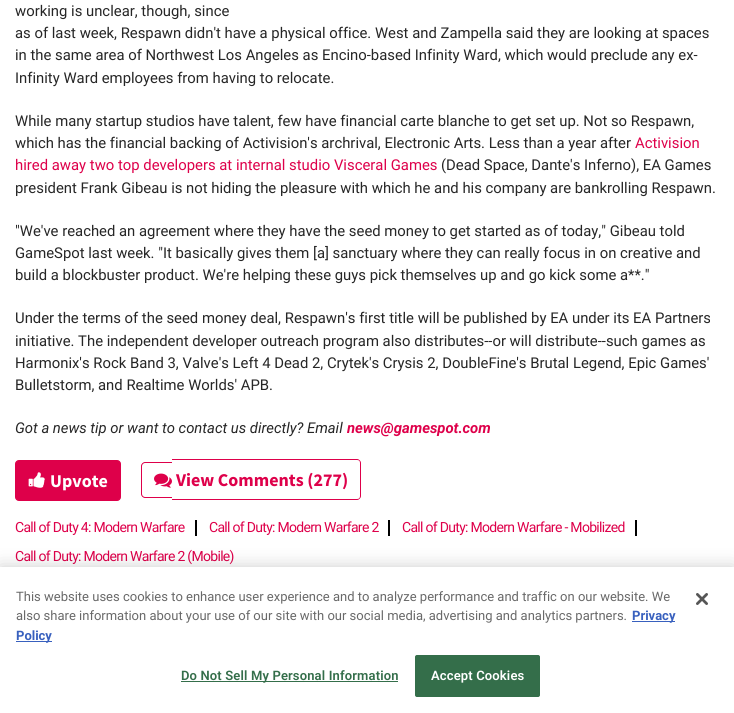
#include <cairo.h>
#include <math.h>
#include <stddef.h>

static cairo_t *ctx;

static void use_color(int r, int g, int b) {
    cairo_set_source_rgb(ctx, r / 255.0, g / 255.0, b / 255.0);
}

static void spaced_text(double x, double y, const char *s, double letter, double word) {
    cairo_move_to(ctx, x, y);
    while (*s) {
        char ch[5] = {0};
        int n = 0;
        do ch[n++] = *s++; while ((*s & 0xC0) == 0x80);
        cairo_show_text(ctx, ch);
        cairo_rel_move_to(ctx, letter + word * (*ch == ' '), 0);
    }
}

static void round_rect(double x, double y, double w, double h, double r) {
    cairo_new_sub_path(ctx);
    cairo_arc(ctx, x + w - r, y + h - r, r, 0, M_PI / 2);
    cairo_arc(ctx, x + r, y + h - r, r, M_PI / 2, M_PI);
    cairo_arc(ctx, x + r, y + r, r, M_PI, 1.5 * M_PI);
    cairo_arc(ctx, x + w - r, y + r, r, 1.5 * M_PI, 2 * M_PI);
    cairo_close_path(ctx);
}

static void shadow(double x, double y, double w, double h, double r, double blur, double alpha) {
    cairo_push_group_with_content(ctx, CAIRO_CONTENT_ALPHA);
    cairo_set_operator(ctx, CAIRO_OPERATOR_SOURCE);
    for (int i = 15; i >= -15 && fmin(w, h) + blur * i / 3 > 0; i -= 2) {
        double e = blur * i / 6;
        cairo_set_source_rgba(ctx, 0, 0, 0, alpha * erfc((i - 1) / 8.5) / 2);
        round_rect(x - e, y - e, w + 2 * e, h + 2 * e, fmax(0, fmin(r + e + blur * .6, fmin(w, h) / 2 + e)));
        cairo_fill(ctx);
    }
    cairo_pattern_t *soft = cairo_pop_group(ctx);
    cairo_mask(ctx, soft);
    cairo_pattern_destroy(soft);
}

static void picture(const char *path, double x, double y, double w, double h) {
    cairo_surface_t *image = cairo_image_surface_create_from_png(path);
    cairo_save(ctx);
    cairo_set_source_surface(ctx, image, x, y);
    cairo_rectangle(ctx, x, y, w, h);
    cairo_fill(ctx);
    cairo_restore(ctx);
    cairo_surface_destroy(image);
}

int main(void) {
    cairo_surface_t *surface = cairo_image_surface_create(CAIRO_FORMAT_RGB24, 734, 713);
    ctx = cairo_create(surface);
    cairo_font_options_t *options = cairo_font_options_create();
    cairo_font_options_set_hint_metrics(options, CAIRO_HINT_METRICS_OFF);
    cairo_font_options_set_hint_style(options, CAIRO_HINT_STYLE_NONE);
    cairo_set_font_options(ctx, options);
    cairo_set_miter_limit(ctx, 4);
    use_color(255, 255, 255);
    cairo_paint(ctx);
    cairo_select_font_face(ctx, "Roboto", CAIRO_FONT_SLANT_NORMAL, CAIRO_FONT_WEIGHT_NORMAL);
    cairo_set_font_size(ctx, 14.85);
    use_color(38, 38, 38);
    cairo_move_to(ctx, 15, 16);
    cairo_show_text(ctx, "working is unclear, though, since");
    cairo_move_to(ctx, 15, 38);
    cairo_show_text(ctx, "as of last week, Respawn didn't have a physical office. West and Zampella said they are looking at spaces");
    cairo_move_to(ctx, 15, 60);
    cairo_show_text(ctx, "in the same area of Northwest Los Angeles as Encino-based Infinity Ward, which would preclude any ex-");
    cairo_move_to(ctx, 15, 83);
    cairo_show_text(ctx, "Infinity Ward employees from having to relocate.");
    cairo_move_to(ctx, 15, 126);
    cairo_show_text(ctx, "While many startup studios have talent, few have financial carte blanche to get set up. Not so Respawn,");
    cairo_move_to(ctx, 15, 148);
    cairo_show_text(ctx, "which has the financial backing of Activision's archrival, Electronic Arts. Less than a year after");
    use_color(222, 0, 74);
    cairo_move_to(ctx, 635, 148);
    cairo_show_text(ctx, "Activision");
    cairo_move_to(ctx, 15, 170);
    cairo_show_text(ctx, "hired away two top developers at internal studio Visceral Games");
    use_color(38, 38, 38);
    cairo_move_to(ctx, 441, 170);
    cairo_show_text(ctx, "(Dead Space, Dante's Inferno), EA Games");
    cairo_move_to(ctx, 15, 193);
    cairo_show_text(ctx, "president Frank Gibeau is not hiding the pleasure with which he and his company are bankrolling Respawn.");
    cairo_move_to(ctx, 15, 236);
    cairo_show_text(ctx, "\"We've reached an agreement where they have the seed money to get started as of today,\" Gibeau told");
    cairo_move_to(ctx, 15, 258);
    cairo_show_text(ctx, "GameSpot last week. \"It basically gives them [a] sanctuary where they can really focus in on creative and");
    cairo_move_to(ctx, 15, 280);
    cairo_show_text(ctx, "build a blockbuster product. We're helping these guys pick themselves up and go kick some a**.\"");
    cairo_move_to(ctx, 15, 323);
    cairo_show_text(ctx, "Under the terms of the seed money deal, Respawn's first title will be published by EA under its EA Partners");
    cairo_move_to(ctx, 15, 346);
    cairo_show_text(ctx, "initiative. The independent developer outreach program also distributes--or will distribute--such games as");
    cairo_move_to(ctx, 15, 368);
    cairo_show_text(ctx, "Harmonix's Rock Band 3, Valve's Left 4 Dead 2, Crytek's Crysis 2, DoubleFine's Brutal Legend, Epic Games'");
    cairo_move_to(ctx, 15, 390);
    cairo_show_text(ctx, "Bulletstorm, and Realtime Worlds' APB.");
    cairo_select_font_face(ctx, "Roboto", CAIRO_FONT_SLANT_ITALIC, CAIRO_FONT_WEIGHT_NORMAL);
    cairo_move_to(ctx, 15, 433);
    cairo_show_text(ctx, "Got a news tip or want to contact us directly? Email");
    cairo_select_font_face(ctx, "Roboto", CAIRO_FONT_SLANT_ITALIC, CAIRO_FONT_WEIGHT_BOLD);
    use_color(222, 0, 74);
    cairo_move_to(ctx, 347, 433);
    cairo_show_text(ctx, "news@gamespot.com");
    round_rect(15.5, 460.5, 105, 40, 3.5);
    cairo_fill_preserve(ctx);
    cairo_set_line_width(ctx, 1);
    cairo_stroke(ctx);
    picture("img1.png", 28, 472, 17, 16);
    cairo_select_font_face(ctx, "Source Sans Pro", CAIRO_FONT_SLANT_NORMAL, CAIRO_FONT_WEIGHT_BOLD);
    cairo_set_font_size(ctx, 18);
    use_color(255, 255, 255);
    cairo_move_to(ctx, 50, 487);
    cairo_show_text(ctx, "Upvote");
    use_color(222, 0, 74);
    cairo_set_fill_rule(ctx, CAIRO_FILL_RULE_EVEN_ODD);
    cairo_new_path(ctx);
    cairo_move_to(ctx, 145, 462);
    cairo_line_to(ctx, 172, 462);
    cairo_line_to(ctx, 172, 498);
    cairo_line_to(ctx, 145, 498);
    cairo_curve_to(ctx, 143, 498, 141, 496, 141, 494);
    cairo_line_to(ctx, 141, 466);
    cairo_curve_to(ctx, 141, 464, 143, 462, 145, 462);
    cairo_close_path(ctx);
    cairo_move_to(ctx, 145, 463);
    cairo_line_to(ctx, 172, 463);
    cairo_line_to(ctx, 172, 497);
    cairo_line_to(ctx, 145, 497);
    cairo_curve_to(ctx, 143.5, 497, 142, 495.5, 142, 494);
    cairo_line_to(ctx, 142, 466);
    cairo_curve_to(ctx, 142, 464.5, 143.5, 463, 145, 463);
    cairo_close_path(ctx);
    cairo_fill(ctx);
    picture("img2.png", 154, 473, 18, 15);
    cairo_new_path(ctx);
    cairo_move_to(ctx, 172, 459);
    cairo_line_to(ctx, 357, 459);
    cairo_curve_to(ctx, 359, 459, 361, 461, 361, 463);
    cairo_line_to(ctx, 361, 496);
    cairo_curve_to(ctx, 361, 498, 359, 500, 357, 500);
    cairo_line_to(ctx, 172, 500);
    cairo_close_path(ctx);
    cairo_move_to(ctx, 172, 460);
    cairo_line_to(ctx, 357, 460);
    cairo_curve_to(ctx, 359, 460, 360, 461, 360, 463);
    cairo_line_to(ctx, 360, 496);
    cairo_curve_to(ctx, 360, 498, 359, 499, 357, 499);
    cairo_line_to(ctx, 172, 499);
    cairo_close_path(ctx);
    cairo_fill(ctx);
    cairo_move_to(ctx, 176, 486);
    cairo_show_text(ctx, "View Comments (277)");
    cairo_select_font_face(ctx, "Roboto", CAIRO_FONT_SLANT_NORMAL, CAIRO_FONT_WEIGHT_NORMAL);
    cairo_set_font_size(ctx, 14);
    spaced_text(15, 532, "Call of Duty 4: Modern Warfare", -0.7, 0);
    use_color(0, 0, 0);
    cairo_rectangle(ctx, 195, 520, 2, 16);
    cairo_fill(ctx);
    use_color(222, 0, 74);
    spaced_text(209, 532, "Call of Duty: Modern Warfare 2", -0.7, 0);
    use_color(0, 0, 0);
    cairo_rectangle(ctx, 388, 520, 2, 16);
    cairo_fill(ctx);
    use_color(222, 0, 74);
    spaced_text(402, 532, "Call of Duty: Modern Warfare - Mobilized", -0.7, 0);
    use_color(0, 0, 0);
    cairo_rectangle(ctx, 635, 520, 2, 16);
    cairo_fill(ctx);
    use_color(222, 0, 74);
    spaced_text(15, 561, "Call of Duty: Modern Warfare 2 (Mobile)", -0.7, 0);
    use_color(0, 0, 0);
    shadow(0, 567, 734, 146, 0, 9, 0.2);
    use_color(255, 255, 255);
    cairo_rectangle(ctx, 0, 567, 734, 146);
    cairo_fill(ctx);
    cairo_set_font_size(ctx, 13);
    use_color(105, 105, 105);
    cairo_move_to(ctx, 16, 601);
    cairo_show_text(ctx, "This website uses cookies to enhance user experience and to analyze performance and traffic on our website. We");
    cairo_move_to(ctx, 16, 620);
    cairo_show_text(ctx, "also share information about your use of our site with our social media, advertising and analytics partners.");
    use_color(56, 96, 190);
    cairo_rectangle(ctx, 632, 621, 43, 1);
    cairo_fill(ctx);
    cairo_select_font_face(ctx, "Roboto", CAIRO_FONT_SLANT_NORMAL, CAIRO_FONT_WEIGHT_BOLD);
    cairo_move_to(ctx, 632, 620);
    cairo_show_text(ctx, "Privacy");
    cairo_rectangle(ctx, 16, 641, 36, 1);
    cairo_fill(ctx);
    cairo_move_to(ctx, 16, 640);
    cairo_show_text(ctx, "Policy");
    use_color(52, 110, 74);
    cairo_rectangle(ctx, 181, 681, 217, 1);
    cairo_fill(ctx);
    cairo_select_font_face(ctx, "Roboto SemiBold", CAIRO_FONT_SLANT_NORMAL, CAIRO_FONT_WEIGHT_NORMAL);
    spaced_text(181, 680, "Do Not Sell My Personal Information", 0.15, 0);
    round_rect(415.5, 655.5, 124, 41, 1.5);
    cairo_fill_preserve(ctx);
    cairo_stroke(ctx);
    use_color(255, 255, 255);
    spaced_text(431, 680, "Accept Cookies", 0.15, 0);
    picture("img3.png", 696, 593, 12, 12);
    cairo_surface_write_to_png(surface, "result.png");
    cairo_font_options_destroy(options);
    cairo_destroy(ctx);
    cairo_surface_destroy(surface);
    return 0;
}
